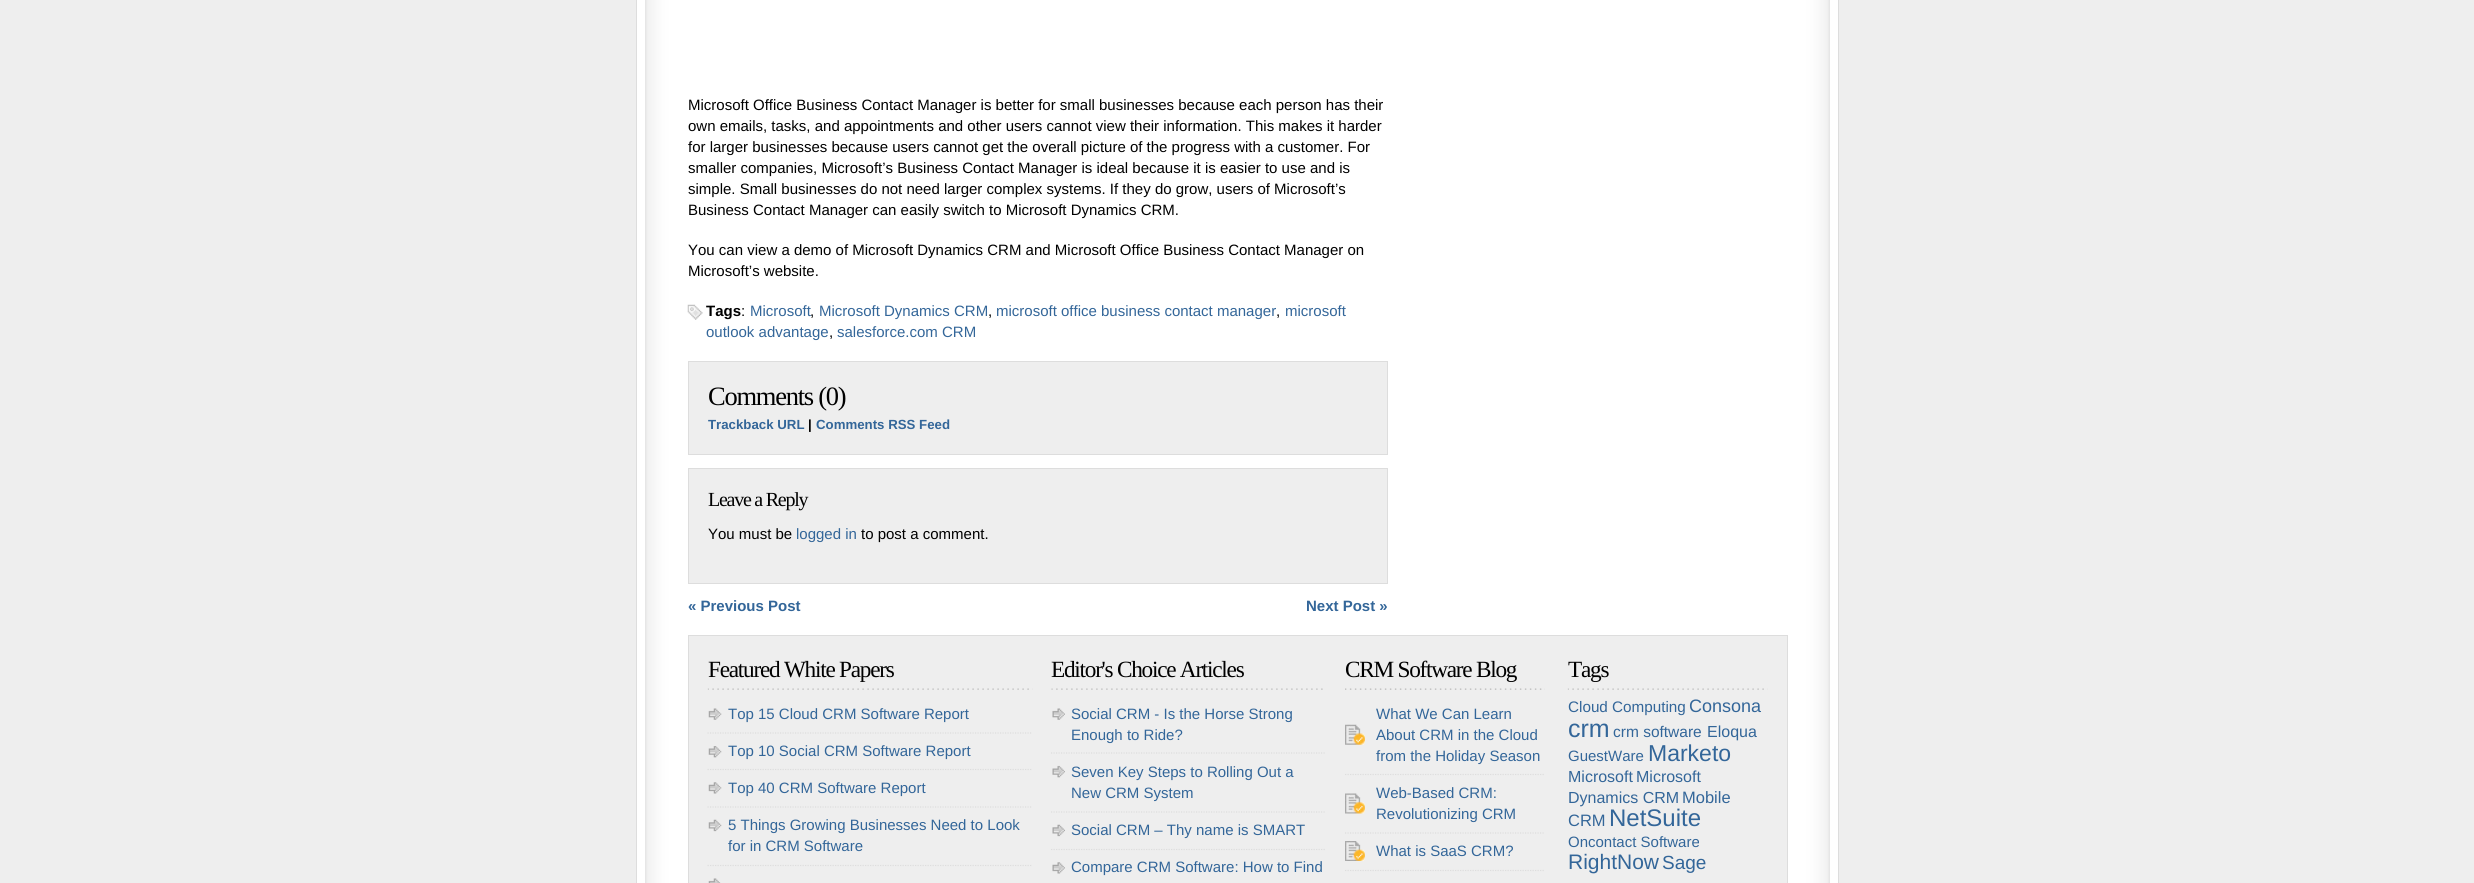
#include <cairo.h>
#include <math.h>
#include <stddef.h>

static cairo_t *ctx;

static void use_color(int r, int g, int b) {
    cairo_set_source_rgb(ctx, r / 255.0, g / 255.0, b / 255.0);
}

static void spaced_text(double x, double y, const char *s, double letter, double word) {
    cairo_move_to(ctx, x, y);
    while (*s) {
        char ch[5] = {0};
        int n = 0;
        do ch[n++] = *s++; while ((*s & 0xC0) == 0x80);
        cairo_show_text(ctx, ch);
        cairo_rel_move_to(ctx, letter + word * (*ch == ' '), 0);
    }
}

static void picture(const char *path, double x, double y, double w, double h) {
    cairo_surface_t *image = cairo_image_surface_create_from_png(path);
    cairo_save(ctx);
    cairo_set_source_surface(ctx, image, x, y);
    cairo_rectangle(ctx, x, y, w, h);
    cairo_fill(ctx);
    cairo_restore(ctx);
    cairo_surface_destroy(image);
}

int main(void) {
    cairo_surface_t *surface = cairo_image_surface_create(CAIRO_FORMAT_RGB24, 2474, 883);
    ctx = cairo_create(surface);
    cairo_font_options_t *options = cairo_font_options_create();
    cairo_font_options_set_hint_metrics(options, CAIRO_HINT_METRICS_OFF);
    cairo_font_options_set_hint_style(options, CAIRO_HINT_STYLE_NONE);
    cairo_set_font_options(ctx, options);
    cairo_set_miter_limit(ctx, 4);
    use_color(238, 238, 238);
    cairo_paint(ctx);
    use_color(255, 255, 255);
    cairo_rectangle(ctx, 637, 0, 1201, 883);
    cairo_fill(ctx);
    picture("img1.png", 645, 0, 1185, 883);
    use_color(221, 221, 221);
    cairo_rectangle(ctx, 1838, 0, 1, 883);
    cairo_fill(ctx);
    cairo_rectangle(ctx, 636, 0, 1, 883);
    cairo_fill(ctx);
    cairo_select_font_face(ctx, "Liberation Sans", CAIRO_FONT_SLANT_NORMAL, CAIRO_FONT_WEIGHT_NORMAL);
    cairo_set_font_size(ctx, 15);
    use_color(0, 0, 0);
    cairo_move_to(ctx, 688, 110);
    cairo_show_text(ctx, "Microsoft Office Business Contact Manager is better for small businesses because each person has their");
    cairo_move_to(ctx, 688, 131);
    cairo_show_text(ctx, "own emails, tasks, and appointments and other users cannot view their information. This makes it harder");
    cairo_move_to(ctx, 688, 152);
    cairo_show_text(ctx, "for larger businesses because users cannot get the overall picture of the progress with a customer. For");
    cairo_move_to(ctx, 688, 173);
    cairo_show_text(ctx, "smaller companies, Microsoft’s Business Contact Manager is ideal because it is easier to use and is");
    cairo_move_to(ctx, 688, 194);
    cairo_show_text(ctx, "simple. Small businesses do not need larger complex systems. If they do grow, users of Microsoft’s");
    cairo_move_to(ctx, 688, 215);
    cairo_show_text(ctx, "Business Contact Manager can easily switch to Microsoft Dynamics CRM.");
    cairo_move_to(ctx, 688, 255);
    cairo_show_text(ctx, "You can view a demo of Microsoft Dynamics CRM and Microsoft Office Business Contact Manager on");
    cairo_move_to(ctx, 688, 276);
    cairo_show_text(ctx, "Microsoft’s website.");
    picture("img2.png", 687, 304, 16, 16);
    cairo_select_font_face(ctx, "Liberation Sans", CAIRO_FONT_SLANT_NORMAL, CAIRO_FONT_WEIGHT_BOLD);
    cairo_move_to(ctx, 706, 316);
    cairo_show_text(ctx, "Tags");
    cairo_select_font_face(ctx, "Liberation Sans", CAIRO_FONT_SLANT_NORMAL, CAIRO_FONT_WEIGHT_NORMAL);
    cairo_move_to(ctx, 741, 316);
    cairo_show_text(ctx, ":");
    use_color(51, 102, 153);
    cairo_move_to(ctx, 750, 316);
    cairo_show_text(ctx, "Microsoft");
    use_color(0, 0, 0);
    cairo_move_to(ctx, 810, 316);
    cairo_show_text(ctx, ",");
    use_color(51, 102, 153);
    cairo_move_to(ctx, 819, 316);
    cairo_show_text(ctx, "Microsoft Dynamics CRM");
    use_color(0, 0, 0);
    cairo_move_to(ctx, 988, 316);
    cairo_show_text(ctx, ",");
    use_color(51, 102, 153);
    cairo_move_to(ctx, 996, 316);
    cairo_show_text(ctx, "microsoft office business contact manager");
    use_color(0, 0, 0);
    cairo_move_to(ctx, 1276, 316);
    cairo_show_text(ctx, ",");
    use_color(51, 102, 153);
    cairo_move_to(ctx, 1285, 316);
    cairo_show_text(ctx, "microsoft");
    cairo_move_to(ctx, 706, 337);
    cairo_show_text(ctx, "outlook advantage");
    use_color(0, 0, 0);
    cairo_move_to(ctx, 829, 337);
    cairo_show_text(ctx, ",");
    use_color(51, 102, 153);
    cairo_move_to(ctx, 837, 337);
    cairo_show_text(ctx, "salesforce.com CRM");
    use_color(238, 238, 238);
    cairo_rectangle(ctx, 688.5, 361.5, 699, 93);
    cairo_fill_preserve(ctx);
    use_color(221, 221, 221);
    cairo_set_line_width(ctx, 1);
    cairo_stroke(ctx);
    cairo_select_font_face(ctx, "Liberation Serif", CAIRO_FONT_SLANT_NORMAL, CAIRO_FONT_WEIGHT_NORMAL);
    cairo_set_font_size(ctx, 26.5);
    use_color(0, 0, 0);
    spaced_text(708, 405, "Comments (0)", -1.25, 0);
    cairo_select_font_face(ctx, "Liberation Sans", CAIRO_FONT_SLANT_NORMAL, CAIRO_FONT_WEIGHT_BOLD);
    cairo_set_font_size(ctx, 13.25);
    use_color(51, 102, 153);
    cairo_move_to(ctx, 708, 429);
    cairo_show_text(ctx, "Trackback URL");
    use_color(0, 0, 0);
    cairo_move_to(ctx, 808, 429);
    cairo_show_text(ctx, "|");
    use_color(51, 102, 153);
    cairo_move_to(ctx, 816, 429);
    cairo_show_text(ctx, "Comments RSS Feed");
    use_color(238, 238, 238);
    cairo_rectangle(ctx, 688.5, 468.5, 699, 115);
    cairo_fill_preserve(ctx);
    use_color(221, 221, 221);
    cairo_stroke(ctx);
    cairo_select_font_face(ctx, "Liberation Serif", CAIRO_FONT_SLANT_NORMAL, CAIRO_FONT_WEIGHT_NORMAL);
    cairo_set_font_size(ctx, 20);
    use_color(0, 0, 0);
    spaced_text(708, 506, "Leave a Reply", -1.25, 0);
    cairo_select_font_face(ctx, "Liberation Sans", CAIRO_FONT_SLANT_NORMAL, CAIRO_FONT_WEIGHT_NORMAL);
    cairo_set_font_size(ctx, 15);
    cairo_move_to(ctx, 708, 539);
    cairo_show_text(ctx, "You must be");
    use_color(51, 102, 153);
    cairo_move_to(ctx, 796, 539);
    cairo_show_text(ctx, "logged in");
    use_color(0, 0, 0);
    cairo_move_to(ctx, 861, 539);
    cairo_show_text(ctx, "to post a comment.");
    cairo_select_font_face(ctx, "Liberation Sans", CAIRO_FONT_SLANT_NORMAL, CAIRO_FONT_WEIGHT_BOLD);
    use_color(51, 102, 153);
    cairo_move_to(ctx, 688, 611);
    cairo_show_text(ctx, "« Previous Post");
    cairo_move_to(ctx, 1306, 611);
    cairo_show_text(ctx, "Next Post »");
    use_color(238, 238, 238);
    cairo_rectangle(ctx, 688.5, 635.5, 1099, 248);
    cairo_fill_preserve(ctx);
    use_color(221, 221, 221);
    cairo_stroke(ctx);
    picture("img3.png", 707, 688, 326, 2);
    cairo_select_font_face(ctx, "Liberation Serif", CAIRO_FONT_SLANT_NORMAL, CAIRO_FONT_WEIGHT_NORMAL);
    cairo_set_font_size(ctx, 23.25);
    use_color(0, 0, 0);
    spaced_text(708, 677, "Featured White Papers", -1.25, 0);
    picture("img4.png", 708, 708, 14, 12);
    cairo_new_path(ctx);
    cairo_move_to(ctx, 707.5, 733);
    cairo_line_to(ctx, 1032.5, 733);
    use_color(221, 221, 221);
    cairo_set_line_width(ctx, 1.2);
    cairo_set_dash(ctx, (double[]){1.25, 1.25}, 2, 0);
    cairo_stroke(ctx);
    cairo_select_font_face(ctx, "Liberation Sans", CAIRO_FONT_SLANT_NORMAL, CAIRO_FONT_WEIGHT_NORMAL);
    cairo_set_font_size(ctx, 15);
    use_color(51, 102, 153);
    cairo_move_to(ctx, 728, 719);
    cairo_show_text(ctx, "Top 15 Cloud CRM Software Report");
    picture("img5.png", 708, 746, 14, 12);
    cairo_new_path(ctx);
    cairo_move_to(ctx, 707.5, 769.5);
    cairo_line_to(ctx, 1032.5, 769.5);
    use_color(221, 221, 221);
    cairo_stroke(ctx);
    use_color(51, 102, 153);
    cairo_move_to(ctx, 728, 756);
    cairo_show_text(ctx, "Top 10 Social CRM Software Report");
    picture("img6.png", 708, 782, 14, 12);
    cairo_new_path(ctx);
    cairo_move_to(ctx, 707.5, 807);
    cairo_line_to(ctx, 1032.5, 807);
    use_color(221, 221, 221);
    cairo_stroke(ctx);
    use_color(51, 102, 153);
    cairo_move_to(ctx, 728, 793);
    cairo_show_text(ctx, "Top 40 CRM Software Report");
    picture("img7.png", 708, 819, 14, 13);
    cairo_new_path(ctx);
    cairo_move_to(ctx, 707.5, 865.5);
    cairo_line_to(ctx, 1032.5, 865.5);
    use_color(221, 221, 221);
    cairo_stroke(ctx);
    use_color(51, 102, 153);
    cairo_move_to(ctx, 728, 830);
    cairo_show_text(ctx, "5 Things Growing Businesses Need to Look");
    cairo_move_to(ctx, 728, 851);
    cairo_show_text(ctx, "for in CRM Software");
    picture("img8.png", 708, 878, 13, 5);
    picture("img9.png", 1051, 688, 272, 2);
    cairo_select_font_face(ctx, "Liberation Serif", CAIRO_FONT_SLANT_NORMAL, CAIRO_FONT_WEIGHT_NORMAL);
    cairo_set_font_size(ctx, 23.25);
    use_color(0, 0, 0);
    spaced_text(1051, 677, "Editor's Choice Articles", -1.25, 0);
    picture("img10.png", 1052, 708, 13, 12);
    cairo_new_path(ctx);
    cairo_move_to(ctx, 1051, 753);
    cairo_line_to(ctx, 1326, 753);
    use_color(221, 221, 221);
    cairo_stroke(ctx);
    cairo_select_font_face(ctx, "Liberation Sans", CAIRO_FONT_SLANT_NORMAL, CAIRO_FONT_WEIGHT_NORMAL);
    cairo_set_font_size(ctx, 15);
    use_color(51, 102, 153);
    cairo_move_to(ctx, 1071, 719);
    cairo_show_text(ctx, "Social CRM - Is the Horse Strong");
    cairo_move_to(ctx, 1071, 740);
    cairo_show_text(ctx, "Enough to Ride?");
    picture("img11.png", 1052, 765, 13, 13);
    cairo_new_path(ctx);
    cairo_move_to(ctx, 1051, 812);
    cairo_line_to(ctx, 1326, 812);
    use_color(221, 221, 221);
    cairo_stroke(ctx);
    use_color(51, 102, 153);
    cairo_move_to(ctx, 1071, 777);
    cairo_show_text(ctx, "Seven Key Steps to Rolling Out a");
    cairo_move_to(ctx, 1071, 798);
    cairo_show_text(ctx, "New CRM System");
    picture("img12.png", 1052, 824, 13, 13);
    cairo_new_path(ctx);
    cairo_move_to(ctx, 1051, 849.5);
    cairo_line_to(ctx, 1326, 849.5);
    use_color(221, 221, 221);
    cairo_stroke(ctx);
    use_color(51, 102, 153);
    cairo_move_to(ctx, 1071, 835);
    cairo_show_text(ctx, "Social CRM – Thy name is SMART");
    picture("img13.png", 1052, 862, 13, 12);
    cairo_move_to(ctx, 1071, 872);
    cairo_show_text(ctx, "Compare CRM Software: How to Find");
    picture("img14.png", 1345, 688, 200, 2);
    cairo_select_font_face(ctx, "Liberation Serif", CAIRO_FONT_SLANT_NORMAL, CAIRO_FONT_WEIGHT_NORMAL);
    cairo_set_font_size(ctx, 23.25);
    use_color(0, 0, 0);
    spaced_text(1345, 677, "CRM Software Blog", -1.25, 0);
    picture("img15.png", 1345, 724, 20, 21);
    cairo_new_path(ctx);
    cairo_move_to(ctx, 1345, 774.5);
    cairo_line_to(ctx, 1545, 774.5);
    use_color(221, 221, 221);
    cairo_stroke(ctx);
    cairo_select_font_face(ctx, "Liberation Sans", CAIRO_FONT_SLANT_NORMAL, CAIRO_FONT_WEIGHT_NORMAL);
    cairo_set_font_size(ctx, 15);
    use_color(51, 102, 153);
    cairo_move_to(ctx, 1376, 719);
    cairo_show_text(ctx, "What We Can Learn");
    cairo_move_to(ctx, 1376, 740);
    cairo_show_text(ctx, "About CRM in the Cloud");
    cairo_move_to(ctx, 1376, 761);
    cairo_show_text(ctx, "from the Holiday Season");
    picture("img16.png", 1345, 793, 20, 21);
    cairo_new_path(ctx);
    cairo_move_to(ctx, 1345, 833);
    cairo_line_to(ctx, 1545, 833);
    use_color(221, 221, 221);
    cairo_stroke(ctx);
    use_color(51, 102, 153);
    cairo_move_to(ctx, 1376, 798);
    cairo_show_text(ctx, "Web-Based CRM:");
    cairo_move_to(ctx, 1376, 819);
    cairo_show_text(ctx, "Revolutionizing CRM");
    picture("img17.png", 1345, 841, 20, 20);
    cairo_new_path(ctx);
    cairo_move_to(ctx, 1345, 870.5);
    cairo_line_to(ctx, 1545, 870.5);
    use_color(221, 221, 221);
    cairo_stroke(ctx);
    use_color(51, 102, 153);
    cairo_move_to(ctx, 1376, 856);
    cairo_show_text(ctx, "What is SaaS CRM?");
    picture("img18.png", 1567, 688, 201, 2);
    cairo_save(ctx);
    cairo_rectangle(ctx, 1568, 655, 200, 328);
    cairo_clip(ctx);
    cairo_select_font_face(ctx, "Liberation Serif", CAIRO_FONT_SLANT_NORMAL, CAIRO_FONT_WEIGHT_NORMAL);
    cairo_set_font_size(ctx, 23.25);
    use_color(0, 0, 0);
    spaced_text(1568, 677, "Tags", -1.25, 0);
    cairo_restore(ctx);
    cairo_set_font_size(ctx, 15.25);
    cairo_move_to(ctx, 1568, 712);
    cairo_show_text(ctx, "Cloud Computing");
    cairo_set_font_size(ctx, 18);
    cairo_move_to(ctx, 1689, 712);
    cairo_show_text(ctx, "Consona");
    cairo_set_font_size(ctx, 25);
    cairo_move_to(ctx, 1568, 737);
    cairo_show_text(ctx, "crm");
    cairo_set_font_size(ctx, 15.5);
    cairo_move_to(ctx, 1613, 737);
    cairo_show_text(ctx, "crm software");
    cairo_set_font_size(ctx, 16);
    cairo_move_to(ctx, 1707, 737);
    cairo_show_text(ctx, "Eloqua");
    cairo_set_font_size(ctx, 15);
    cairo_move_to(ctx, 1568, 761);
    cairo_show_text(ctx, "GuestWare");
    cairo_set_font_size(ctx, 23);
    cairo_move_to(ctx, 1648, 761);
    cairo_show_text(ctx, "Marketo");
    cairo_set_font_size(ctx, 16);
    cairo_move_to(ctx, 1568, 782);
    cairo_show_text(ctx, "Microsoft");
    cairo_move_to(ctx, 1636, 782);
    cairo_show_text(ctx, "Microsoft");
    cairo_move_to(ctx, 1568, 803);
    cairo_show_text(ctx, "Dynamics CRM");
    cairo_set_font_size(ctx, 16.5);
    cairo_move_to(ctx, 1682, 803);
    cairo_show_text(ctx, "Mobile");
    cairo_move_to(ctx, 1568, 826);
    cairo_show_text(ctx, "CRM");
    cairo_set_font_size(ctx, 24);
    cairo_move_to(ctx, 1609, 826);
    cairo_show_text(ctx, "NetSuite");
    cairo_set_font_size(ctx, 15);
    cairo_move_to(ctx, 1568, 847);
    cairo_show_text(ctx, "Oncontact Software");
    cairo_set_font_size(ctx, 21);
    cairo_move_to(ctx, 1568, 869);
    cairo_show_text(ctx, "RightNow");
    cairo_set_font_size(ctx, 19);
    cairo_move_to(ctx, 1662, 869);
    cairo_show_text(ctx, "Sage");
    cairo_surface_write_to_png(surface, "result.png");
    cairo_font_options_destroy(options);
    cairo_destroy(ctx);
    cairo_surface_destroy(surface);
    return 0;
}
